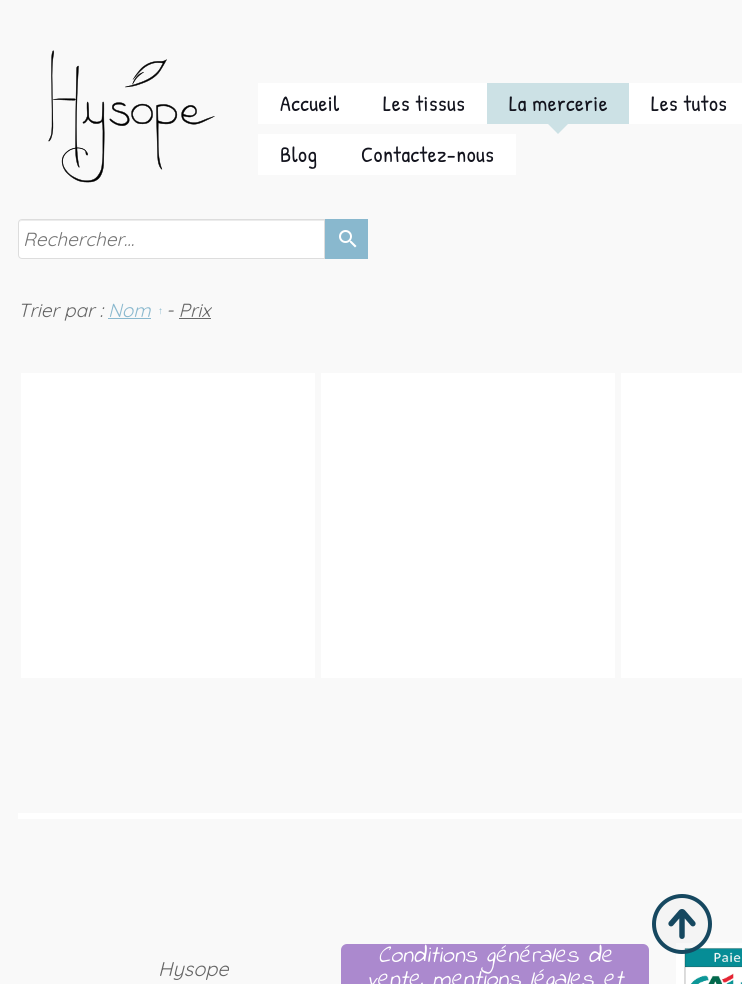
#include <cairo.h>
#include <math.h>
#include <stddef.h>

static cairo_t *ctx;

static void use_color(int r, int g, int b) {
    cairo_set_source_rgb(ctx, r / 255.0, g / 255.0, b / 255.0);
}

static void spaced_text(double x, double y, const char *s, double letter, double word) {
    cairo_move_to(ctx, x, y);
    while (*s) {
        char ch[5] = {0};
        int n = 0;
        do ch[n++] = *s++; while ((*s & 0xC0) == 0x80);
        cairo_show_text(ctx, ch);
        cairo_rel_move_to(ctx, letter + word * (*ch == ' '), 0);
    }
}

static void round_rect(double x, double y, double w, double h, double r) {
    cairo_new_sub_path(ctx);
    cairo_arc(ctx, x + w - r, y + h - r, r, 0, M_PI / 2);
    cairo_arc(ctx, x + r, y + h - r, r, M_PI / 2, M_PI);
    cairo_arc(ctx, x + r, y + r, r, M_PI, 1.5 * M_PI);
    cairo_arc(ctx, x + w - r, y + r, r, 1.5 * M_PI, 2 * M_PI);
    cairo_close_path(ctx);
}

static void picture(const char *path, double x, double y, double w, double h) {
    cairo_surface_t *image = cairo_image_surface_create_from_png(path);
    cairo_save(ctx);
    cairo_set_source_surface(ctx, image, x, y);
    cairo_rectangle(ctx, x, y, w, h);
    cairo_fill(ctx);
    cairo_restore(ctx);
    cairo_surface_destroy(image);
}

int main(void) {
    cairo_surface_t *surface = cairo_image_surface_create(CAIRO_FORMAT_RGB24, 742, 984);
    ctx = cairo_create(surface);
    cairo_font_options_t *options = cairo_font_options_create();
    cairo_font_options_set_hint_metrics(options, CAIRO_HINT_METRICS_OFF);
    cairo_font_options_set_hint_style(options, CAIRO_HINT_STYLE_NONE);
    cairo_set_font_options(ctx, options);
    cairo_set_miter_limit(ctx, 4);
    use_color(249, 249, 249);
    cairo_paint(ctx);
    picture("img1.png", 48, 50, 167, 133);
    use_color(255, 255, 255);
    cairo_rectangle(ctx, 258, 83, 229, 41);
    cairo_fill(ctx);
    cairo_select_font_face(ctx, "Patrick Hand", CAIRO_FONT_SLANT_NORMAL, CAIRO_FONT_WEIGHT_NORMAL);
    cairo_set_font_size(ctx, 22);
    use_color(19, 20, 30);
    spaced_text(280, 111, "Accueil", 0.5, 0);
    spaced_text(383, 111, "Les tissus", 0.5, 0);
    use_color(204, 225, 229);
    cairo_rectangle(ctx, 487, 83, 142, 41);
    cairo_fill(ctx);
    use_color(19, 20, 30);
    spaced_text(509, 111, "La mercerie", 0.5, 0);
    use_color(204, 225, 229);
    cairo_new_path(ctx);
    cairo_move_to(ctx, 548, 124);
    cairo_line_to(ctx, 568, 124);
    cairo_line_to(ctx, 558, 134);
    cairo_close_path(ctx);
    cairo_fill(ctx);
    use_color(255, 255, 255);
    cairo_rectangle(ctx, 629, 83, 113, 41);
    cairo_fill(ctx);
    use_color(19, 20, 30);
    spaced_text(651, 111, "Les tutos", 0.5, 0);
    use_color(255, 255, 255);
    cairo_rectangle(ctx, 258, 134, 258, 41);
    cairo_fill(ctx);
    use_color(19, 20, 30);
    spaced_text(280, 162, "Blog", 0.5, 0);
    spaced_text(361, 162, "Contactez-nous", 0.5, 0);
    use_color(255, 255, 255);
    cairo_new_path(ctx);
    cairo_move_to(ctx, 22, 219);
    cairo_line_to(ctx, 325, 219);
    cairo_line_to(ctx, 325, 259);
    cairo_line_to(ctx, 22, 259);
    cairo_curve_to(ctx, 20, 259, 18, 257, 18, 255);
    cairo_line_to(ctx, 18, 223);
    cairo_curve_to(ctx, 18, 221, 20, 219, 22, 219);
    cairo_close_path(ctx);
    cairo_fill(ctx);
    use_color(236, 236, 236);
    cairo_new_path(ctx);
    cairo_move_to(ctx, 22, 221);
    cairo_line_to(ctx, 324, 221);
    cairo_line_to(ctx, 324, 220);
    cairo_line_to(ctx, 22, 220);
    cairo_curve_to(ctx, 20, 220, 19, 222, 19, 224);
    cairo_curve_to(ctx, 19, 222, 20, 221, 22, 221);
    cairo_close_path(ctx);
    cairo_fill(ctx);
    cairo_new_path(ctx);
    cairo_move_to(ctx, 22, 219.5);
    cairo_line_to(ctx, 324.5, 219.5);
    cairo_line_to(ctx, 324.5, 258.5);
    cairo_line_to(ctx, 22, 258.5);
    cairo_curve_to(ctx, 20, 258.5, 18.5, 257, 18.5, 255);
    cairo_line_to(ctx, 18.5, 223);
    cairo_curve_to(ctx, 18.5, 221, 20, 219.5, 22, 219.5);
    cairo_close_path(ctx);
    use_color(221, 221, 221);
    cairo_set_line_width(ctx, 1);
    cairo_stroke(ctx);
    cairo_select_font_face(ctx, "Quicksand", CAIRO_FONT_SLANT_ITALIC, CAIRO_FONT_WEIGHT_NORMAL);
    cairo_set_font_size(ctx, 19);
    use_color(117, 117, 117);
    cairo_move_to(ctx, 23, 246);
    cairo_show_text(ctx, "Rechercher...");
    use_color(137, 184, 206);
    cairo_rectangle(ctx, 325, 219, 43, 40);
    cairo_fill(ctx);
    picture("img2.png", 339, 230, 18, 18);
    use_color(101, 101, 101);
    cairo_move_to(ctx, 18, 317);
    cairo_show_text(ctx, "Trier par :");
    use_color(137, 184, 206);
    cairo_move_to(ctx, 108, 317);
    cairo_show_text(ctx, "Nom");
    cairo_rectangle(ctx, 108, 318, 43, 1);
    cairo_fill(ctx);
    cairo_select_font_face(ctx, "Liberation Serif", CAIRO_FONT_SLANT_ITALIC, CAIRO_FONT_WEIGHT_NORMAL);
    cairo_set_font_size(ctx, 10);
    cairo_move_to(ctx, 158, 314);
    cairo_show_text(ctx, "↑");
    cairo_select_font_face(ctx, "Quicksand", CAIRO_FONT_SLANT_ITALIC, CAIRO_FONT_WEIGHT_NORMAL);
    cairo_set_font_size(ctx, 19);
    use_color(101, 101, 101);
    cairo_move_to(ctx, 166, 317);
    cairo_show_text(ctx, "- Prix");
    cairo_rectangle(ctx, 179, 318, 32, 1);
    cairo_fill(ctx);
    use_color(255, 255, 255);
    cairo_rectangle(ctx, 21, 373, 294, 305);
    cairo_fill(ctx);
    cairo_rectangle(ctx, 321, 373, 294, 305);
    cairo_fill(ctx);
    cairo_rectangle(ctx, 621, 373, 121, 305);
    cairo_fill(ctx);
    cairo_rectangle(ctx, 18, 813, 724, 6);
    cairo_fill(ctx);
    cairo_set_font_size(ctx, 20);
    use_color(101, 101, 101);
    cairo_move_to(ctx, 158, 976);
    cairo_show_text(ctx, "Hysope");
    use_color(171, 137, 206);
    round_rect(341, 944, 308, 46, 6);
    cairo_fill(ctx);
    cairo_select_font_face(ctx, "Indie Flower", CAIRO_FONT_SLANT_ITALIC, CAIRO_FONT_WEIGHT_NORMAL);
    cairo_set_font_size(ctx, 24);
    use_color(255, 255, 255);
    cairo_move_to(ctx, 378, 962);
    cairo_show_text(ctx, "Conditions générales de");
    cairo_move_to(ctx, 367, 986);
    cairo_show_text(ctx, "vente, mentions légales et");
    picture("img3.png", 676, 943, 66, 41);
    cairo_set_source_rgba(ctx, 0.902, 0.902, 0.902, 0.25);
    cairo_arc(ctx, 682, 924, 28, 0, 2 * M_PI);
    cairo_fill_preserve(ctx);
    use_color(22, 72, 96);
    cairo_set_line_width(ctx, 4);
    cairo_stroke(ctx);
    picture("img4.png", 668, 909, 28, 30);
    cairo_surface_write_to_png(surface, "result.png");
    cairo_font_options_destroy(options);
    cairo_destroy(ctx);
    cairo_surface_destroy(surface);
    return 0;
}
